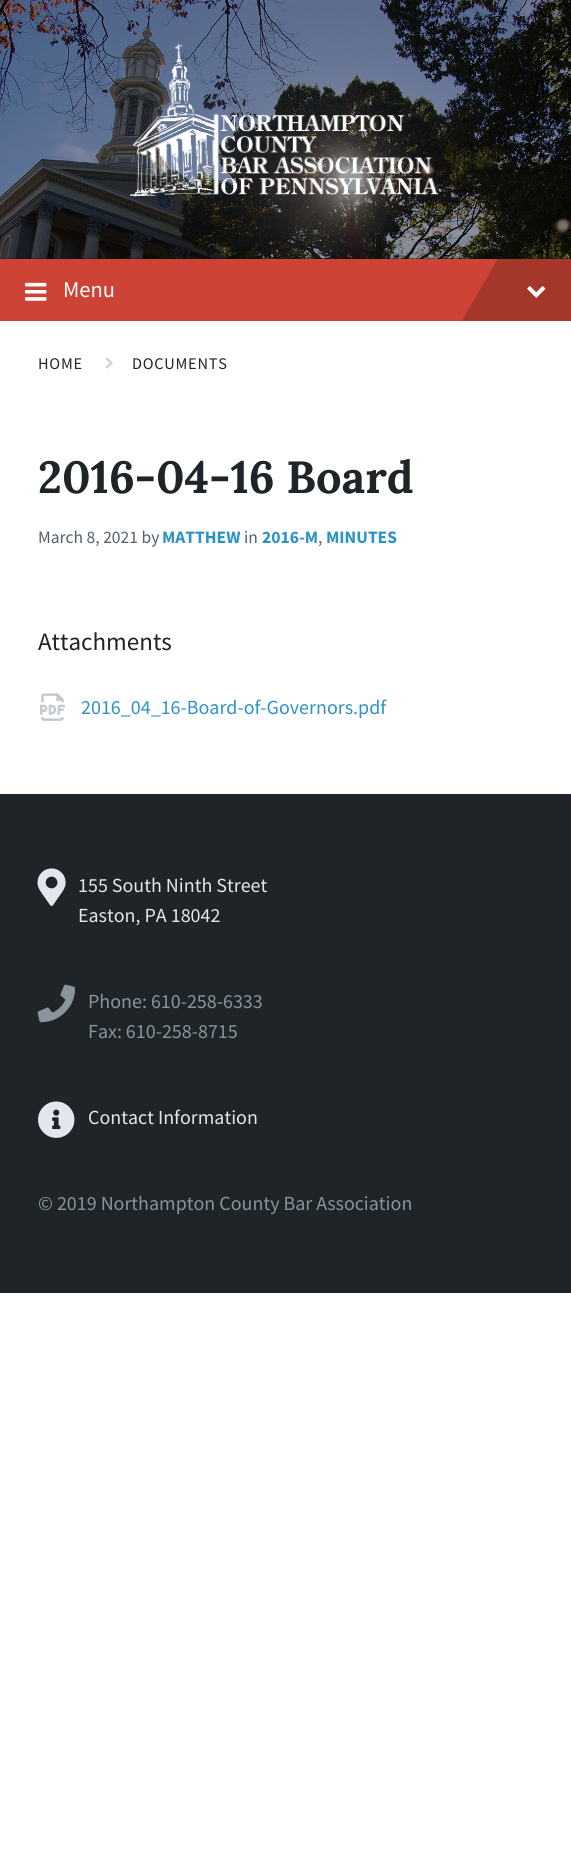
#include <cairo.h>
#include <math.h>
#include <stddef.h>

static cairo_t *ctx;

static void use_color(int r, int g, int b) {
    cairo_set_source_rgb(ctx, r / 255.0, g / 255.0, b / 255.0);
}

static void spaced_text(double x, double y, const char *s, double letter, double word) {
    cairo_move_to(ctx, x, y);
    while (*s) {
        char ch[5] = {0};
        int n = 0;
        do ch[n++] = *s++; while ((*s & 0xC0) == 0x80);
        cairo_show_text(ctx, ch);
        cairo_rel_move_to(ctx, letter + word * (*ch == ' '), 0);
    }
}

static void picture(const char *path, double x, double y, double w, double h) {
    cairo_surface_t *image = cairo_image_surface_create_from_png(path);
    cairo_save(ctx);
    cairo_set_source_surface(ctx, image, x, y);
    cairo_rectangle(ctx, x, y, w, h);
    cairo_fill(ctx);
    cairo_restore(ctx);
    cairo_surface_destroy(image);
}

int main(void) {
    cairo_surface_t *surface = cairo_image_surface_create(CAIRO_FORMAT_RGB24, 571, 1862);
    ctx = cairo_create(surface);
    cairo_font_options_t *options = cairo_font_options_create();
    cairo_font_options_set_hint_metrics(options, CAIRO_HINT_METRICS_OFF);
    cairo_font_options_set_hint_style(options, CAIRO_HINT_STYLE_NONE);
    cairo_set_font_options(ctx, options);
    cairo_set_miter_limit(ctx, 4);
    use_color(255, 255, 255);
    cairo_paint(ctx);
    use_color(18, 22, 23);
    cairo_rectangle(ctx, 0, 258, 571, 1);
    cairo_fill(ctx);
    picture("img1.png", 0, 0, 571, 259);
    picture("img2.png", 130, 42, 309, 155);
    use_color(205, 67, 53);
    cairo_rectangle(ctx, 0, 259, 498, 62);
    cairo_fill(ctx);
    picture("img3.png", 25, 282, 22, 19);
    cairo_select_font_face(ctx, "Source Sans Pro", CAIRO_FONT_SLANT_NORMAL, CAIRO_FONT_WEIGHT_NORMAL);
    cairo_set_font_size(ctx, 22.5);
    use_color(255, 255, 255);
    cairo_move_to(ctx, 63, 297);
    cairo_show_text(ctx, "Menu");
    cairo_save(ctx);
    cairo_rectangle(ctx, 0, 259, 571, 62);
    cairo_clip(ctx);
    use_color(164, 54, 42);
    cairo_new_path(ctx);
    cairo_move_to(ctx, 522, 217);
    cairo_line_to(ctx, 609, 267);
    cairo_line_to(ctx, 545, 376);
    cairo_line_to(ctx, 459, 326);
    cairo_close_path(ctx);
    cairo_fill(ctx);
    cairo_restore(ctx);
    picture("img4.png", 527, 286, 19, 12);
    cairo_set_font_size(ctx, 16.25);
    use_color(30, 36, 39);
    spaced_text(38, 369, "HOME", 0.75, 0);
    picture("img5.png", 105, 357, 8, 12);
    spaced_text(132, 369, "DOCUMENTS", 0.75, 0);
    cairo_select_font_face(ctx, "Lora", CAIRO_FONT_SLANT_NORMAL, CAIRO_FONT_WEIGHT_BOLD);
    cairo_set_font_size(ctx, 45);
    cairo_move_to(ctx, 38, 493);
    cairo_show_text(ctx, "2016-04-16 Board");
    cairo_select_font_face(ctx, "Source Sans Pro", CAIRO_FONT_SLANT_NORMAL, CAIRO_FONT_WEIGHT_NORMAL);
    cairo_set_font_size(ctx, 17.5);
    use_color(84, 94, 105);
    cairo_move_to(ctx, 38, 543);
    cairo_show_text(ctx, "March 8, 2021 by");
    cairo_select_font_face(ctx, "Source Sans Pro", CAIRO_FONT_SLANT_NORMAL, CAIRO_FONT_WEIGHT_BOLD);
    use_color(45, 147, 197);
    cairo_move_to(ctx, 162, 543);
    cairo_show_text(ctx, "MATTHEW");
    cairo_select_font_face(ctx, "Source Sans Pro", CAIRO_FONT_SLANT_NORMAL, CAIRO_FONT_WEIGHT_NORMAL);
    use_color(84, 94, 105);
    cairo_move_to(ctx, 244, 543);
    cairo_show_text(ctx, "in");
    cairo_select_font_face(ctx, "Source Sans Pro", CAIRO_FONT_SLANT_NORMAL, CAIRO_FONT_WEIGHT_BOLD);
    use_color(45, 147, 197);
    cairo_move_to(ctx, 262, 543);
    cairo_show_text(ctx, "2016-M");
    cairo_select_font_face(ctx, "Source Sans Pro", CAIRO_FONT_SLANT_NORMAL, CAIRO_FONT_WEIGHT_NORMAL);
    use_color(84, 94, 105);
    cairo_move_to(ctx, 318, 543);
    cairo_show_text(ctx, ",");
    cairo_select_font_face(ctx, "Source Sans Pro", CAIRO_FONT_SLANT_NORMAL, CAIRO_FONT_WEIGHT_BOLD);
    use_color(45, 147, 197);
    cairo_move_to(ctx, 326, 543);
    cairo_show_text(ctx, "MINUTES");
    cairo_select_font_face(ctx, "Source Sans Pro", CAIRO_FONT_SLANT_NORMAL, CAIRO_FONT_WEIGHT_NORMAL);
    cairo_set_font_size(ctx, 25);
    use_color(30, 36, 39);
    cairo_move_to(ctx, 38, 650);
    cairo_show_text(ctx, "Attachments");
    picture("img6.png", 40, 693, 25, 28);
    cairo_set_font_size(ctx, 20);
    use_color(45, 147, 197);
    cairo_move_to(ctx, 81, 714);
    cairo_show_text(ctx, "2016_04_16-Board-of-Governors.pdf");
    use_color(30, 36, 39);
    cairo_rectangle(ctx, 0, 794, 571, 499);
    cairo_fill(ctx);
    picture("img7.png", 37, 868, 29, 38);
    use_color(225, 231, 236);
    cairo_move_to(ctx, 78, 892);
    cairo_show_text(ctx, "155 South Ninth Street");
    cairo_move_to(ctx, 78, 922);
    cairo_show_text(ctx, "Easton, PA 18042");
    picture("img8.png", 37, 984, 39, 39);
    use_color(138, 148, 155);
    cairo_move_to(ctx, 88, 1008);
    cairo_show_text(ctx, "Phone: 610-258-6333");
    cairo_move_to(ctx, 88, 1038);
    cairo_show_text(ctx, "Fax: 610-258-8715");
    picture("img9.png", 38, 1101, 37, 37);
    use_color(225, 231, 236);
    cairo_move_to(ctx, 88, 1124);
    cairo_show_text(ctx, "Contact Information");
    use_color(138, 148, 155);
    cairo_move_to(ctx, 38, 1210);
    cairo_show_text(ctx, "© 2019 Northampton County Bar Association");
    cairo_surface_write_to_png(surface, "result.png");
    cairo_font_options_destroy(options);
    cairo_destroy(ctx);
    cairo_surface_destroy(surface);
    return 0;
}
